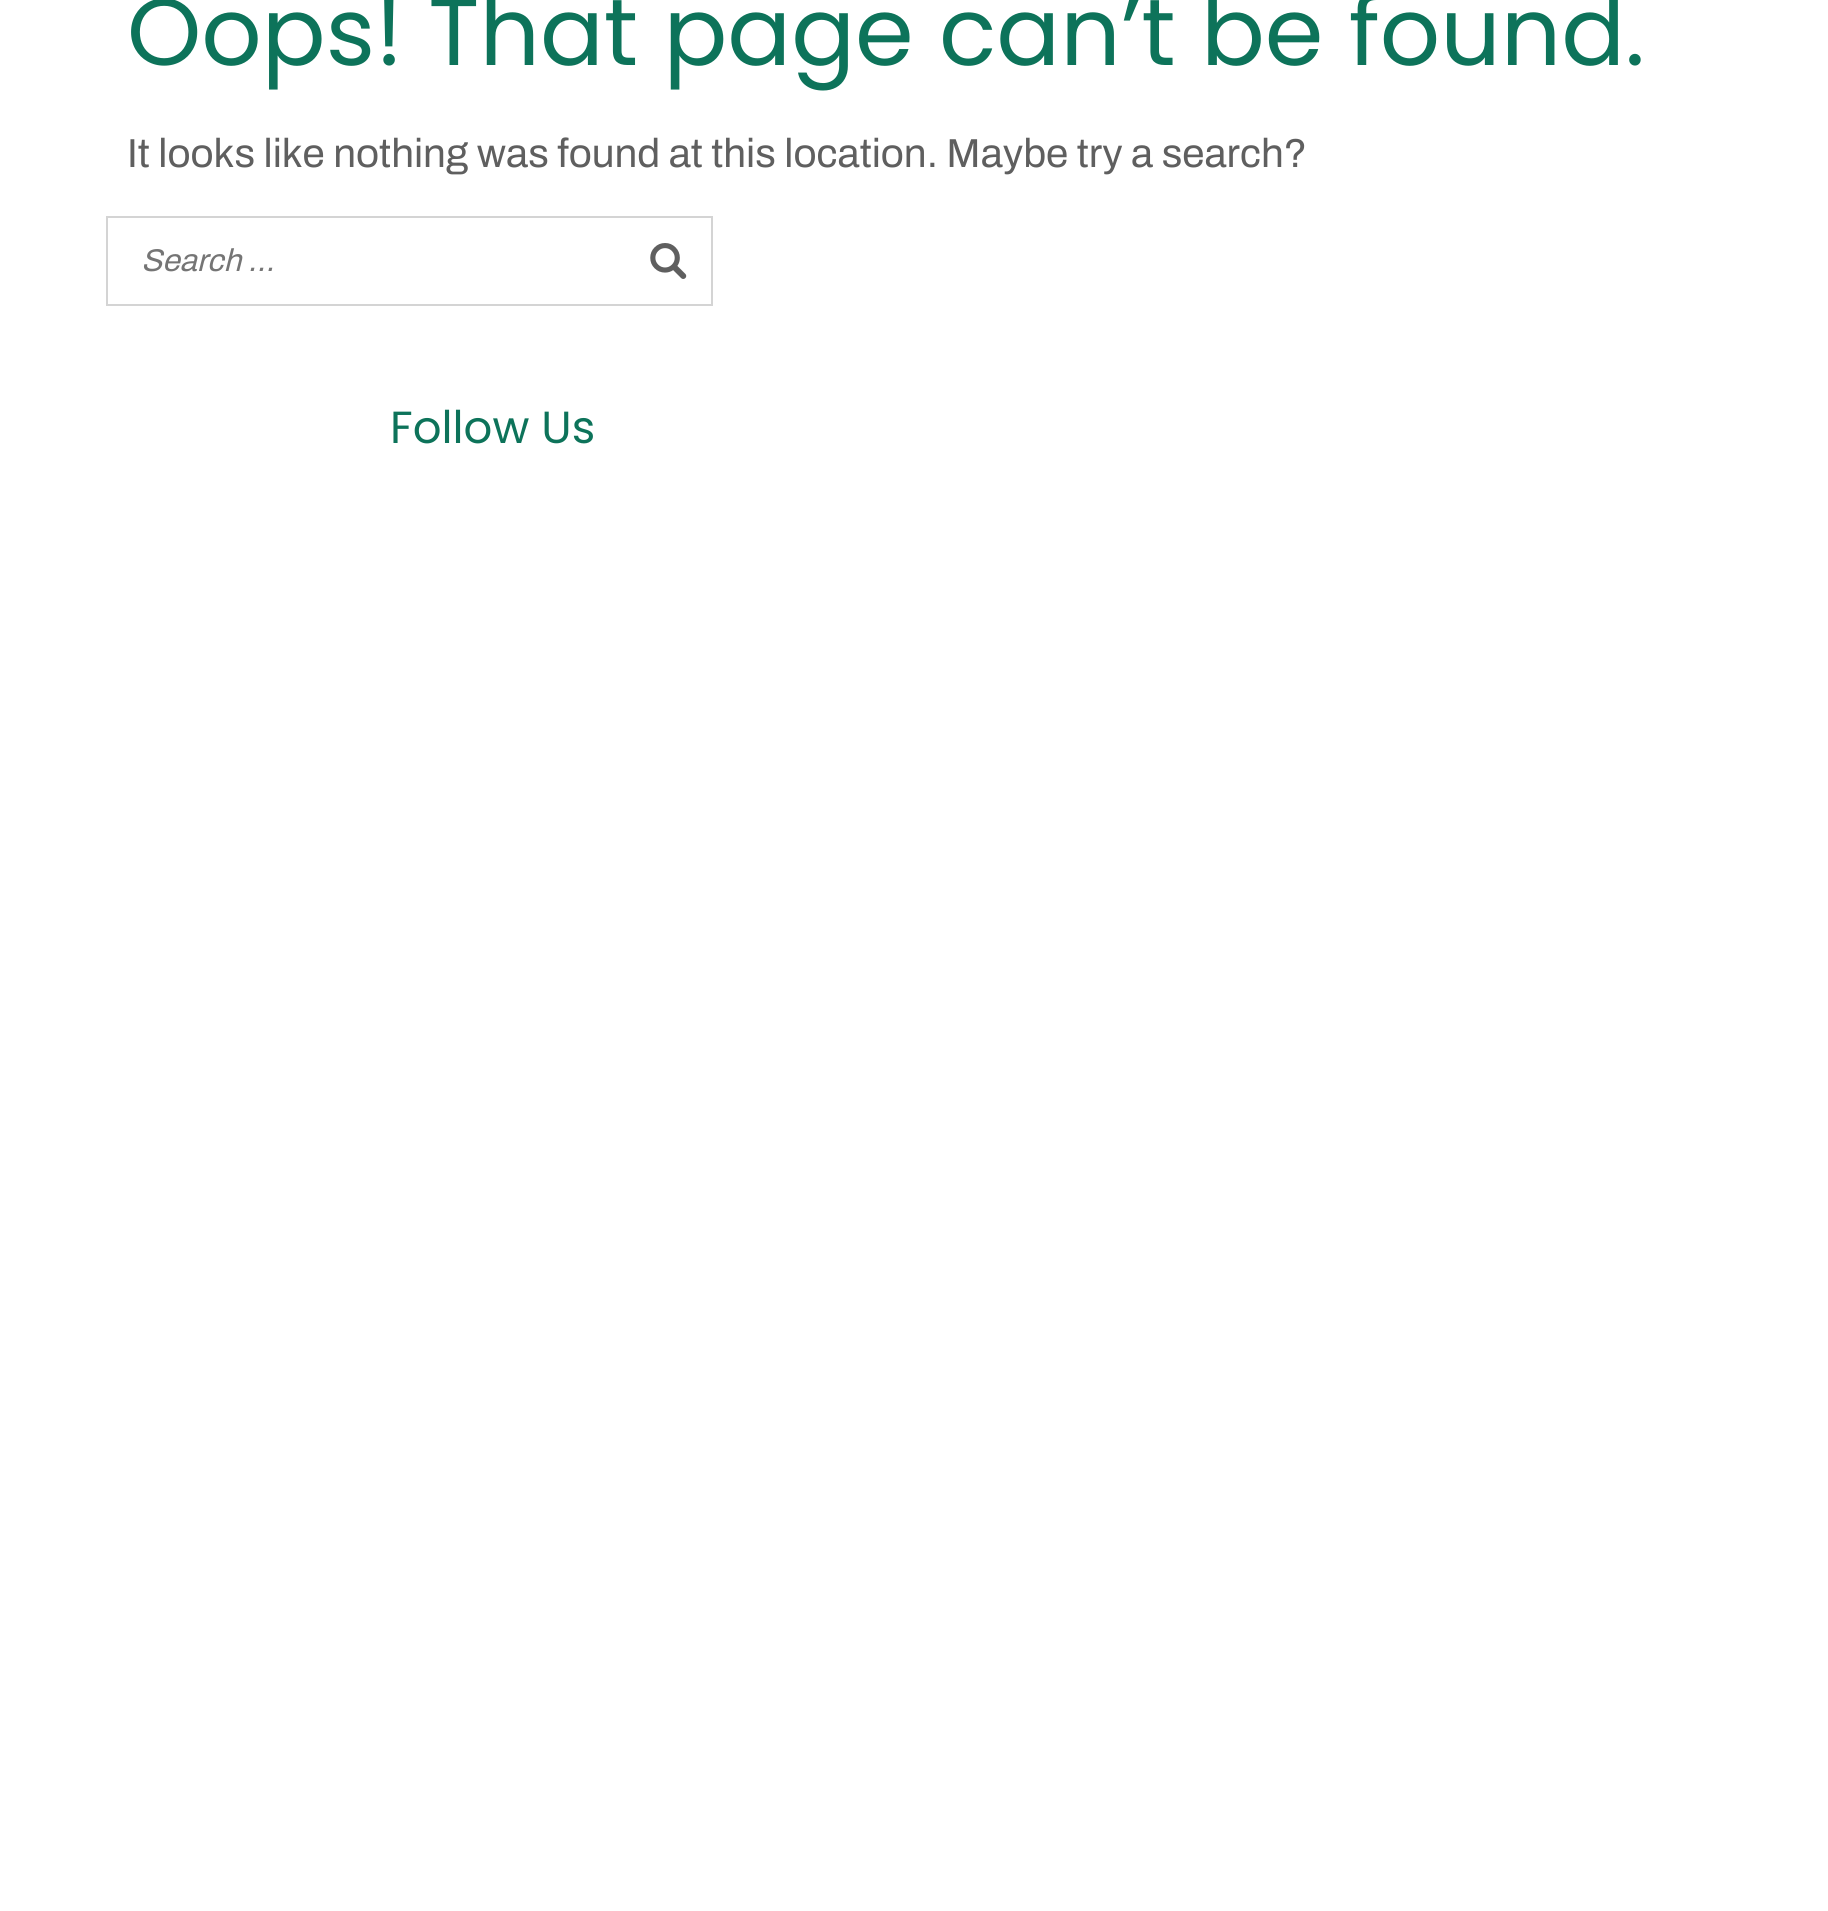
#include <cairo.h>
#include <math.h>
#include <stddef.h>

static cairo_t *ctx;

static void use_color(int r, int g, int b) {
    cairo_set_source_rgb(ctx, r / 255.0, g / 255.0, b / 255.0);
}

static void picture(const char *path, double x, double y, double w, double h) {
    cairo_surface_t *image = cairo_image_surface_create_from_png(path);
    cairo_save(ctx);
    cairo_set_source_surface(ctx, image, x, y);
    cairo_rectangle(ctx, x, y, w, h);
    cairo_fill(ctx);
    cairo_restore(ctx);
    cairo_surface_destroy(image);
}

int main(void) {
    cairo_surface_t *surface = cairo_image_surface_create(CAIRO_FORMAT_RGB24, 1828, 1911);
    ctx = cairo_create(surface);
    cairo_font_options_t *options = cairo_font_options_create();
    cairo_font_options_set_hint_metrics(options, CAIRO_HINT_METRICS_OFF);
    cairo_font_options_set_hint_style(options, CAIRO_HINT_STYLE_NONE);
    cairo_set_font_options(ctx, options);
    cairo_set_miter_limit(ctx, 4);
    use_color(255, 255, 255);
    cairo_paint(ctx);
    cairo_select_font_face(ctx, "Poppins", CAIRO_FONT_SLANT_NORMAL, CAIRO_FONT_WEIGHT_NORMAL);
    cairo_set_font_size(ctx, 94.5);
    use_color(13, 115, 90);
    cairo_move_to(ctx, 127, 65);
    cairo_show_text(ctx, "Oops! That page can’t be found.");
    cairo_select_font_face(ctx, "Archivo SemiBold", CAIRO_FONT_SLANT_NORMAL, CAIRO_FONT_WEIGHT_NORMAL);
    cairo_set_font_size(ctx, 40.5);
    use_color(95, 95, 95);
    cairo_move_to(ctx, 127, 167);
    cairo_show_text(ctx, "It looks like nothing was found at this location. Maybe try a search?");
    cairo_rectangle(ctx, 107, 217, 605, 88);
    use_color(212, 212, 212);
    cairo_stroke(ctx);
    cairo_select_font_face(ctx, "Archivo SemiBold", CAIRO_FONT_SLANT_ITALIC, CAIRO_FONT_WEIGHT_NORMAL);
    cairo_set_font_size(ctx, 31.5);
    use_color(117, 117, 117);
    cairo_move_to(ctx, 141, 271);
    cairo_show_text(ctx, "Search …");
    picture("img1.png", 650, 243, 37, 36);
    cairo_select_font_face(ctx, "Poppins", CAIRO_FONT_SLANT_NORMAL, CAIRO_FONT_WEIGHT_NORMAL);
    cairo_set_font_size(ctx, 45);
    use_color(13, 115, 90);
    cairo_move_to(ctx, 390, 443);
    cairo_show_text(ctx, "Follow Us");
    cairo_surface_write_to_png(surface, "result.png");
    cairo_font_options_destroy(options);
    cairo_destroy(ctx);
    cairo_surface_destroy(surface);
    return 0;
}
